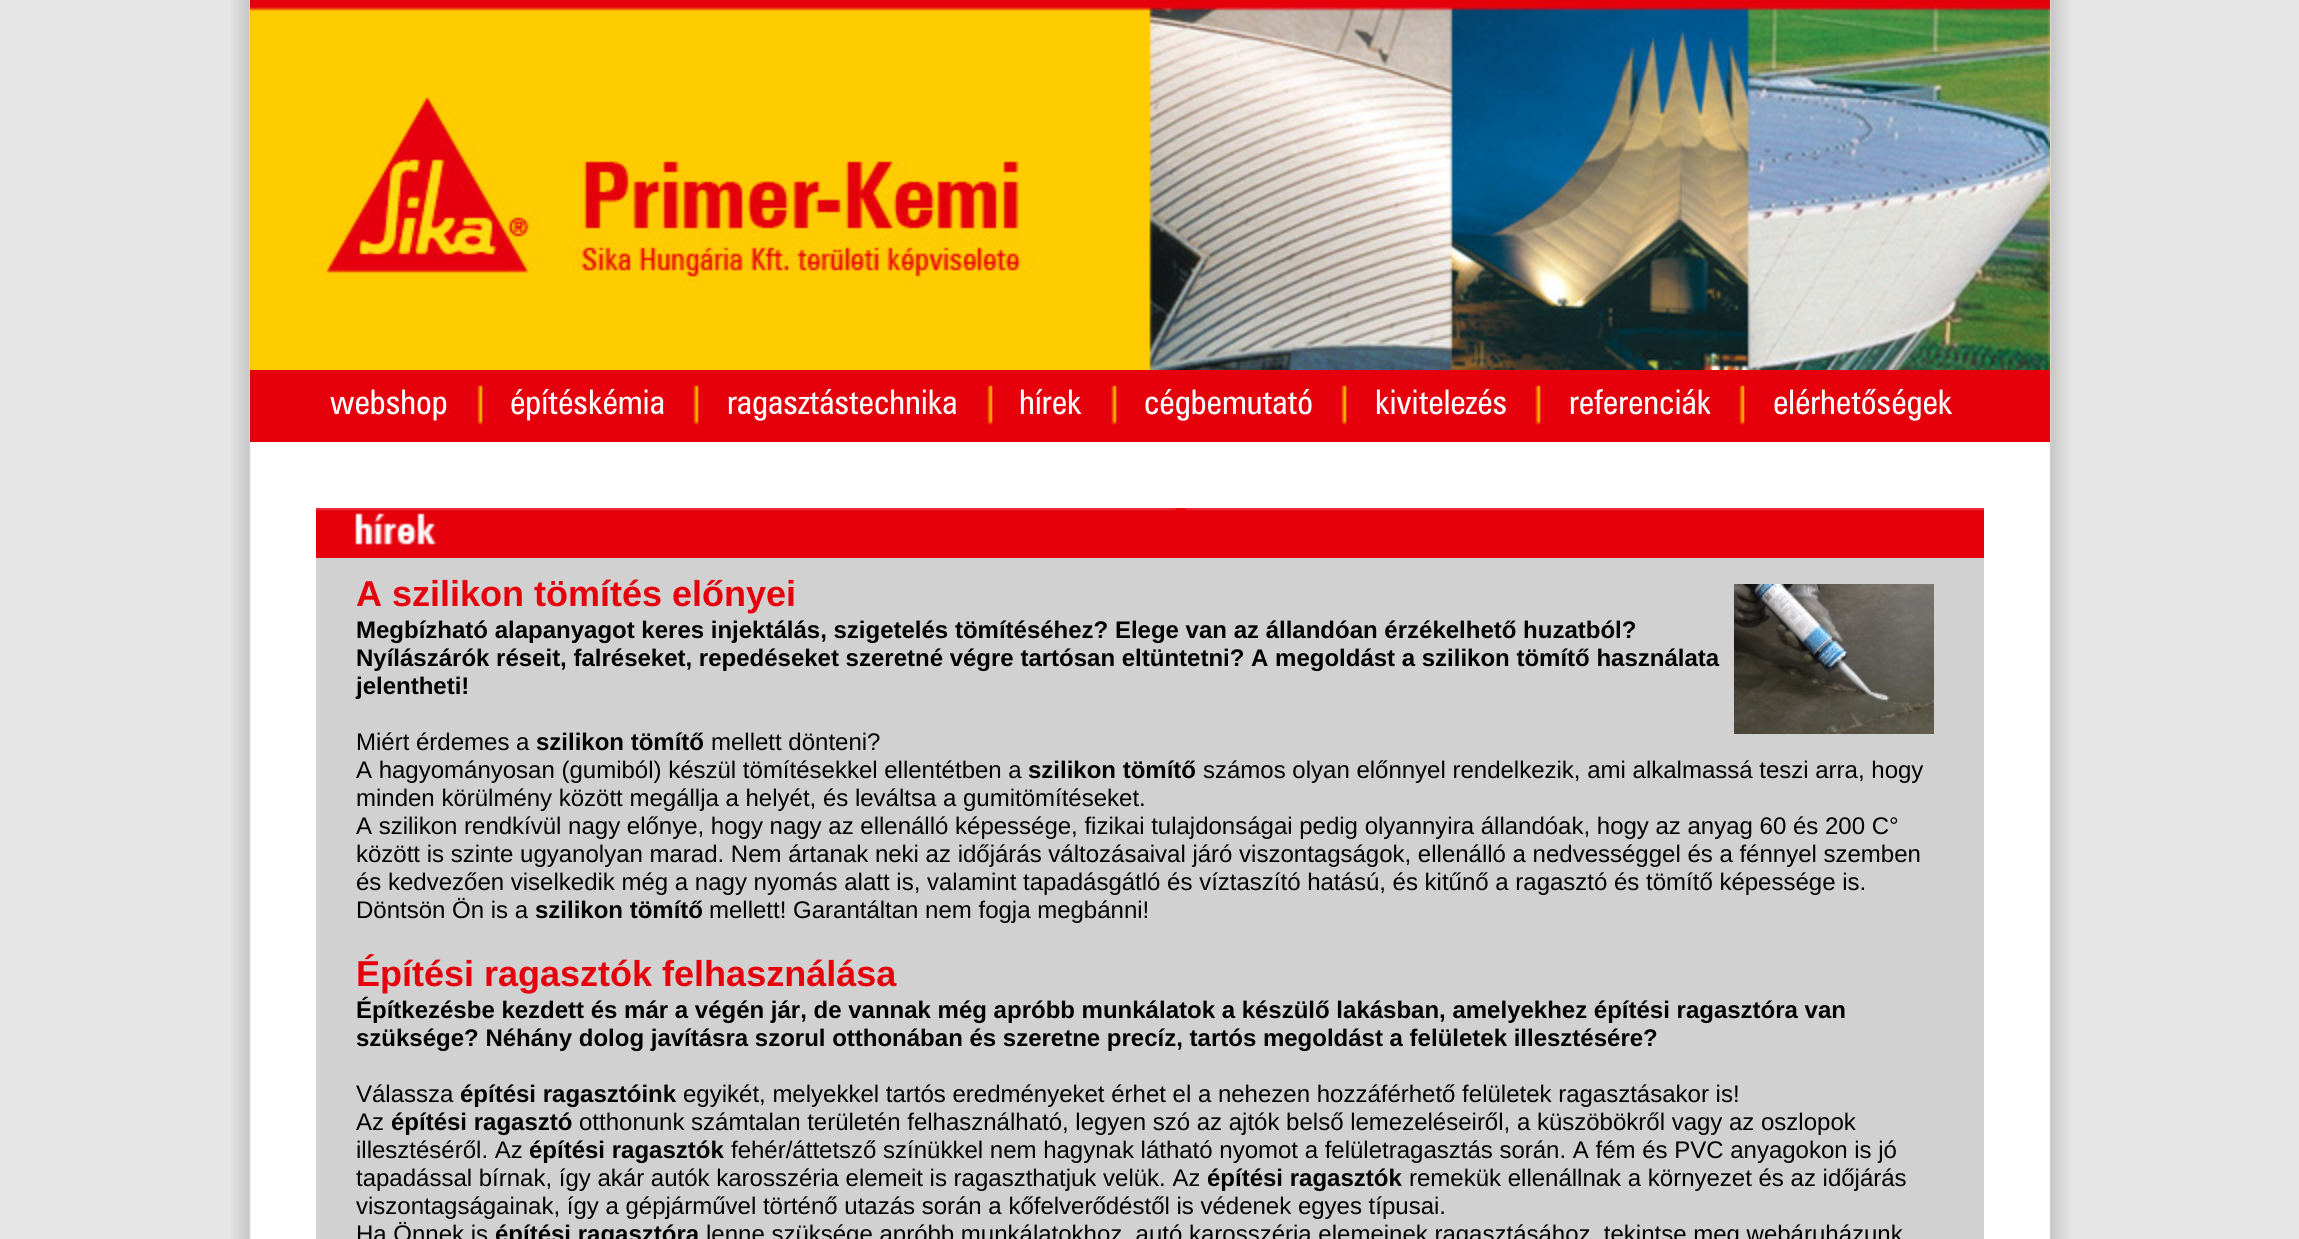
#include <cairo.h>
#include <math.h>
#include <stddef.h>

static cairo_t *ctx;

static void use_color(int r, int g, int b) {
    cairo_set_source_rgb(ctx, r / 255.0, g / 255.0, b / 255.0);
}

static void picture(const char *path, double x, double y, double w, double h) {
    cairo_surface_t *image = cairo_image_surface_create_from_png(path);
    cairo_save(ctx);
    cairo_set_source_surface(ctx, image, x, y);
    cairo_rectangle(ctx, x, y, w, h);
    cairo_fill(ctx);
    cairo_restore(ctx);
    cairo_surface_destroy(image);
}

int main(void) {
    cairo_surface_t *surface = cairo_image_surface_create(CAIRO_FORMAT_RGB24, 2299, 1239);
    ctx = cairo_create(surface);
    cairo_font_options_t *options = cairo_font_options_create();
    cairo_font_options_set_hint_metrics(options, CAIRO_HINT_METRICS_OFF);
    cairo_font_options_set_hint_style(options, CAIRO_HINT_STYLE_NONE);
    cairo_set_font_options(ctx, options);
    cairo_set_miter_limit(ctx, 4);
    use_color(229, 229, 229);
    cairo_paint(ctx);
    picture("img1.png", 231, 0, 1838, 1239);
    picture("img2.png", 250, 0, 1800, 370);
    use_color(229, 0, 11);
    cairo_rectangle(ctx, 250, 370, 1800, 72);
    cairo_fill(ctx);
    cairo_select_font_face(ctx, "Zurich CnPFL", CAIRO_FONT_SLANT_NORMAL, CAIRO_FONT_WEIGHT_NORMAL);
    cairo_set_font_size(ctx, 34);
    use_color(255, 255, 255);
    cairo_move_to(ctx, 330, 414);
    cairo_show_text(ctx, "webshop");
    picture("img3.png", 448, 385, 35, 40);
    cairo_move_to(ctx, 510, 414);
    cairo_show_text(ctx, "építéskémia");
    picture("img3.png", 664, 385, 35, 40);
    cairo_move_to(ctx, 727, 414);
    cairo_show_text(ctx, "ragasztástechnika");
    picture("img3.png", 958, 385, 35, 40);
    cairo_move_to(ctx, 1019, 414);
    cairo_show_text(ctx, "hírek");
    picture("img3.png", 1082, 385, 35, 40);
    cairo_move_to(ctx, 1144, 414);
    cairo_show_text(ctx, "cégbemutató");
    picture("img3.png", 1312, 385, 35, 40);
    cairo_move_to(ctx, 1375, 414);
    cairo_show_text(ctx, "kivitelezés");
    picture("img3.png", 1506, 385, 35, 40);
    cairo_move_to(ctx, 1569, 414);
    cairo_show_text(ctx, "referenciák");
    picture("img3.png", 1710, 385, 35, 40);
    cairo_move_to(ctx, 1773, 414);
    cairo_show_text(ctx, "elérhetőségek");
    picture("img4.png", 316, 508, 1668, 50);
    use_color(209, 209, 209);
    cairo_rectangle(ctx, 316, 558, 1668, 681);
    cairo_fill(ctx);
    cairo_select_font_face(ctx, "Liberation Sans", CAIRO_FONT_SLANT_NORMAL, CAIRO_FONT_WEIGHT_BOLD);
    cairo_set_font_size(ctx, 36);
    use_color(229, 0, 11);
    cairo_move_to(ctx, 356, 606);
    cairo_show_text(ctx, "A szilikon tömítés előnyei");
    picture("img5.png", 1734, 584, 200, 150);
    cairo_set_font_size(ctx, 24);
    use_color(0, 0, 0);
    cairo_move_to(ctx, 356, 638);
    cairo_show_text(ctx, "Megbízható alapanyagot keres injektálás, szigetelés tömítéséhez? Elege van az állandóan érzékelhető huzatból?");
    cairo_move_to(ctx, 356, 666);
    cairo_show_text(ctx, "Nyílászárók réseit, falréseket, repedéseket szeretné végre tartósan eltüntetni? A megoldást a szilikon tömítő használata");
    cairo_move_to(ctx, 356, 694);
    cairo_show_text(ctx, "jelentheti!");
    cairo_select_font_face(ctx, "Liberation Sans", CAIRO_FONT_SLANT_NORMAL, CAIRO_FONT_WEIGHT_NORMAL);
    cairo_move_to(ctx, 356, 750);
    cairo_show_text(ctx, "Miért érdemes a");
    cairo_select_font_face(ctx, "Liberation Sans", CAIRO_FONT_SLANT_NORMAL, CAIRO_FONT_WEIGHT_BOLD);
    cairo_move_to(ctx, 536, 750);
    cairo_show_text(ctx, "szilikon tömítő");
    cairo_select_font_face(ctx, "Liberation Sans", CAIRO_FONT_SLANT_NORMAL, CAIRO_FONT_WEIGHT_NORMAL);
    cairo_move_to(ctx, 711, 750);
    cairo_show_text(ctx, "mellett dönteni?");
    cairo_move_to(ctx, 356, 778);
    cairo_show_text(ctx, "A hagyományosan (gumiból) készül tömítésekkel ellentétben a");
    cairo_select_font_face(ctx, "Liberation Sans", CAIRO_FONT_SLANT_NORMAL, CAIRO_FONT_WEIGHT_BOLD);
    cairo_move_to(ctx, 1028, 778);
    cairo_show_text(ctx, "szilikon tömítő");
    cairo_select_font_face(ctx, "Liberation Sans", CAIRO_FONT_SLANT_NORMAL, CAIRO_FONT_WEIGHT_NORMAL);
    cairo_move_to(ctx, 1203, 778);
    cairo_show_text(ctx, "számos olyan előnnyel rendelkezik, ami alkalmassá teszi arra, hogy");
    cairo_move_to(ctx, 356, 806);
    cairo_show_text(ctx, "minden körülmény között megállja a helyét, és leváltsa a gumitömítéseket.");
    cairo_move_to(ctx, 356, 834);
    cairo_show_text(ctx, "A szilikon rendkívül nagy előnye, hogy nagy az ellenálló képessége, fizikai tulajdonságai pedig olyannyira állandóak, hogy az anyag 60 és 200 C°");
    cairo_move_to(ctx, 356, 862);
    cairo_show_text(ctx, "között is szinte ugyanolyan marad. Nem ártanak neki az időjárás változásaival járó viszontagságok, ellenálló a nedvességgel és a fénnyel szemben");
    cairo_move_to(ctx, 356, 890);
    cairo_show_text(ctx, "és kedvezően viselkedik még a nagy nyomás alatt is, valamint tapadásgátló és víztaszító hatású, és kitűnő a ragasztó és tömítő képessége is.");
    cairo_move_to(ctx, 356, 918);
    cairo_show_text(ctx, "Döntsön Ön is a");
    cairo_select_font_face(ctx, "Liberation Sans", CAIRO_FONT_SLANT_NORMAL, CAIRO_FONT_WEIGHT_BOLD);
    cairo_move_to(ctx, 535, 918);
    cairo_show_text(ctx, "szilikon tömítő");
    cairo_select_font_face(ctx, "Liberation Sans", CAIRO_FONT_SLANT_NORMAL, CAIRO_FONT_WEIGHT_NORMAL);
    cairo_move_to(ctx, 709, 918);
    cairo_show_text(ctx, "mellett! Garantáltan nem fogja megbánni!");
    cairo_select_font_face(ctx, "Liberation Sans", CAIRO_FONT_SLANT_NORMAL, CAIRO_FONT_WEIGHT_BOLD);
    cairo_set_font_size(ctx, 36);
    use_color(229, 0, 11);
    cairo_move_to(ctx, 356, 986);
    cairo_show_text(ctx, "Építési ragasztók felhasználása");
    cairo_set_font_size(ctx, 24);
    use_color(0, 0, 0);
    cairo_move_to(ctx, 356, 1018);
    cairo_show_text(ctx, "Építkezésbe kezdett és már a végén jár, de vannak még apróbb munkálatok a készülő lakásban, amelyekhez építési ragasztóra van");
    cairo_move_to(ctx, 356, 1046);
    cairo_show_text(ctx, "szüksége? Néhány dolog javításra szorul otthonában és szeretne precíz, tartós megoldást a felületek illesztésére?");
    cairo_select_font_face(ctx, "Liberation Sans", CAIRO_FONT_SLANT_NORMAL, CAIRO_FONT_WEIGHT_NORMAL);
    cairo_move_to(ctx, 356, 1102);
    cairo_show_text(ctx, "Válassza");
    cairo_select_font_face(ctx, "Liberation Sans", CAIRO_FONT_SLANT_NORMAL, CAIRO_FONT_WEIGHT_BOLD);
    cairo_move_to(ctx, 460, 1102);
    cairo_show_text(ctx, "építési ragasztóink");
    cairo_select_font_face(ctx, "Liberation Sans", CAIRO_FONT_SLANT_NORMAL, CAIRO_FONT_WEIGHT_NORMAL);
    cairo_move_to(ctx, 683, 1102);
    cairo_show_text(ctx, "egyikét, melyekkel tartós eredményeket érhet el a nehezen hozzáférhető felületek ragasztásakor is!");
    cairo_move_to(ctx, 356, 1130);
    cairo_show_text(ctx, "Az");
    cairo_select_font_face(ctx, "Liberation Sans", CAIRO_FONT_SLANT_NORMAL, CAIRO_FONT_WEIGHT_BOLD);
    cairo_move_to(ctx, 391, 1130);
    cairo_show_text(ctx, "építési ragasztó");
    cairo_select_font_face(ctx, "Liberation Sans", CAIRO_FONT_SLANT_NORMAL, CAIRO_FONT_WEIGHT_NORMAL);
    cairo_move_to(ctx, 579, 1130);
    cairo_show_text(ctx, "otthonunk számtalan területén felhasználható, legyen szó az ajtók belső lemezeléseiről, a küszöbökről vagy az oszlopok");
    cairo_move_to(ctx, 356, 1158);
    cairo_show_text(ctx, "illesztéséről. Az");
    cairo_select_font_face(ctx, "Liberation Sans", CAIRO_FONT_SLANT_NORMAL, CAIRO_FONT_WEIGHT_BOLD);
    cairo_move_to(ctx, 529, 1158);
    cairo_show_text(ctx, "építési ragasztók");
    cairo_select_font_face(ctx, "Liberation Sans", CAIRO_FONT_SLANT_NORMAL, CAIRO_FONT_WEIGHT_NORMAL);
    cairo_move_to(ctx, 731, 1158);
    cairo_show_text(ctx, "fehér/áttetsző színükkel nem hagynak látható nyomot a felületragasztás során. A fém és PVC anyagokon is jó");
    cairo_move_to(ctx, 356, 1186);
    cairo_show_text(ctx, "tapadással bírnak, így akár autók karosszéria elemeit is ragaszthatjuk velük. Az");
    cairo_select_font_face(ctx, "Liberation Sans", CAIRO_FONT_SLANT_NORMAL, CAIRO_FONT_WEIGHT_BOLD);
    cairo_move_to(ctx, 1207, 1186);
    cairo_show_text(ctx, "építési ragasztók");
    cairo_select_font_face(ctx, "Liberation Sans", CAIRO_FONT_SLANT_NORMAL, CAIRO_FONT_WEIGHT_NORMAL);
    cairo_move_to(ctx, 1409, 1186);
    cairo_show_text(ctx, "remekük ellenállnak a környezet és az időjárás");
    cairo_move_to(ctx, 356, 1214);
    cairo_show_text(ctx, "viszontagságainak, így a gépjárművel történő utazás során a kőfelverődéstől is védenek egyes típusai.");
    cairo_move_to(ctx, 356, 1242);
    cairo_show_text(ctx, "Ha Önnek is");
    cairo_select_font_face(ctx, "Liberation Sans", CAIRO_FONT_SLANT_NORMAL, CAIRO_FONT_WEIGHT_BOLD);
    cairo_move_to(ctx, 495, 1242);
    cairo_show_text(ctx, "építési ragasztóra");
    cairo_select_font_face(ctx, "Liberation Sans", CAIRO_FONT_SLANT_NORMAL, CAIRO_FONT_WEIGHT_NORMAL);
    cairo_move_to(ctx, 706, 1242);
    cairo_show_text(ctx, "lenne szüksége apróbb munkálatokhoz, autó karosszéria elemeinek ragasztásához, tekintse meg webáruházunk");
    cairo_surface_write_to_png(surface, "result.png");
    cairo_font_options_destroy(options);
    cairo_destroy(ctx);
    cairo_surface_destroy(surface);
    return 0;
}
